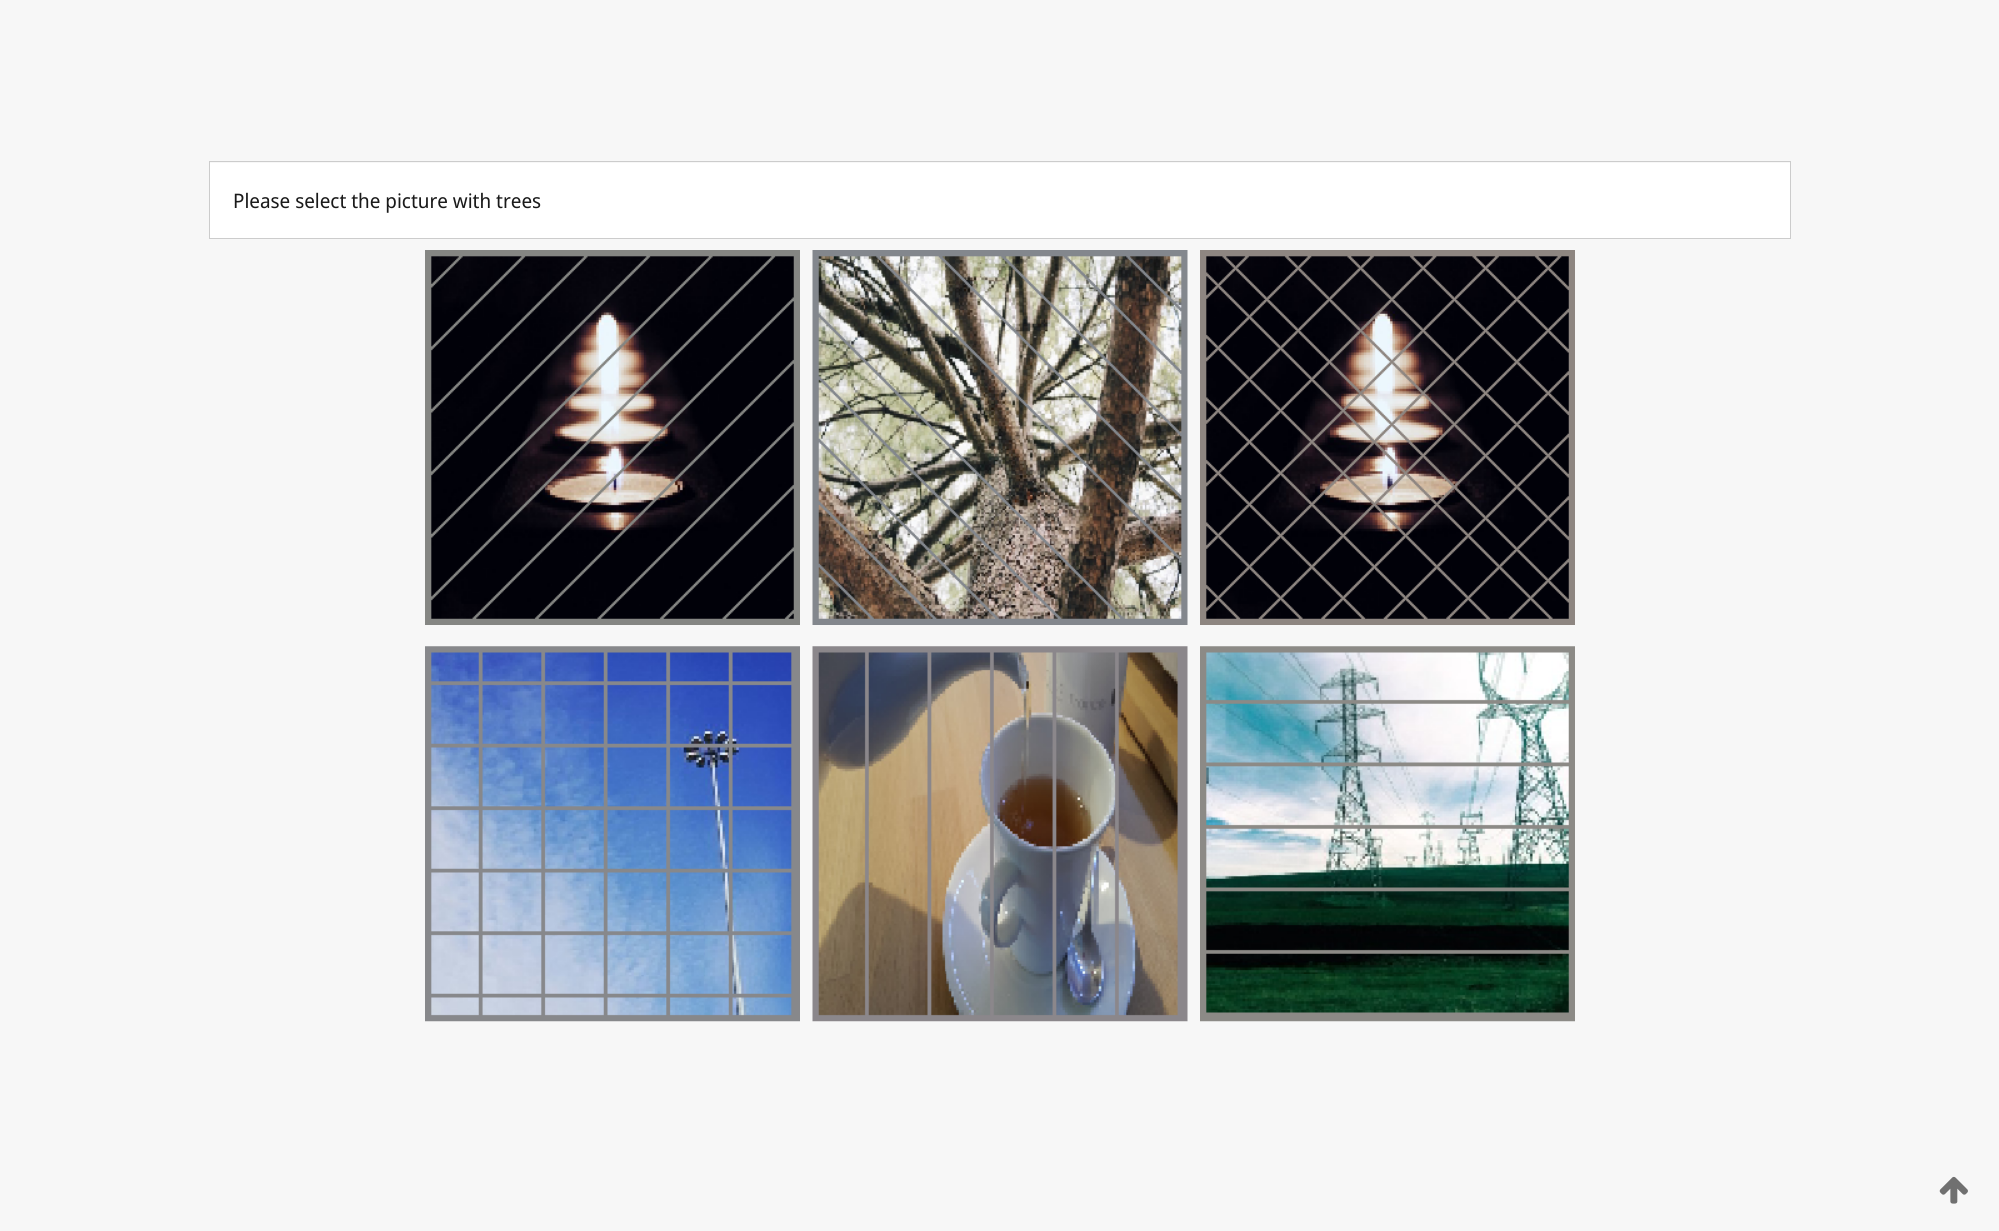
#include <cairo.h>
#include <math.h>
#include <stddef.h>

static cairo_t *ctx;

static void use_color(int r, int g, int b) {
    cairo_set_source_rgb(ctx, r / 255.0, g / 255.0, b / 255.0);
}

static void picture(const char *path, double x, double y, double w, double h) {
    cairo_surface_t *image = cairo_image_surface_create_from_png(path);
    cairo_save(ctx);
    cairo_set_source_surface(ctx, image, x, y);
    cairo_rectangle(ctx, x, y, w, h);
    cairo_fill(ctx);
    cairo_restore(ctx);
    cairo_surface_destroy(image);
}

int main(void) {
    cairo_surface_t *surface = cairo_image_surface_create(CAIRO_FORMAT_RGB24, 1999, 1231);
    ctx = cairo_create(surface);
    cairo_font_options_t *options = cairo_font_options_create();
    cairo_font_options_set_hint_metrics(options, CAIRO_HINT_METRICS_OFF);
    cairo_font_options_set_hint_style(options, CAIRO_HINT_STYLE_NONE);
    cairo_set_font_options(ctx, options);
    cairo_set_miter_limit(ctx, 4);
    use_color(247, 247, 247);
    cairo_paint(ctx);
    use_color(255, 255, 255);
    cairo_rectangle(ctx, 210, 163, 1580, 75);
    cairo_fill(ctx);
    cairo_rectangle(ctx, 209.5, 161.5, 1581, 77);
    use_color(204, 204, 204);
    cairo_set_line_width(ctx, 1);
    cairo_stroke(ctx);
    cairo_select_font_face(ctx, "Noto Sans Display", CAIRO_FONT_SLANT_NORMAL, CAIRO_FONT_WEIGHT_NORMAL);
    cairo_set_font_size(ctx, 20);
    use_color(26, 26, 26);
    cairo_move_to(ctx, 233, 208);
    cairo_show_text(ctx, "Please select the picture with trees");
    picture("img1.png", 425, 250, 375, 375);
    picture("img2.png", 812, 250, 376, 375);
    picture("img3.png", 1200, 250, 375, 375);
    picture("img4.png", 425, 646, 375, 376);
    picture("img5.png", 812, 646, 376, 376);
    picture("img6.png", 1200, 646, 375, 376);
    picture("img7.png", 1939, 1176, 29, 28);
    cairo_surface_write_to_png(surface, "result.png");
    cairo_font_options_destroy(options);
    cairo_destroy(ctx);
    cairo_surface_destroy(surface);
    return 0;
}
